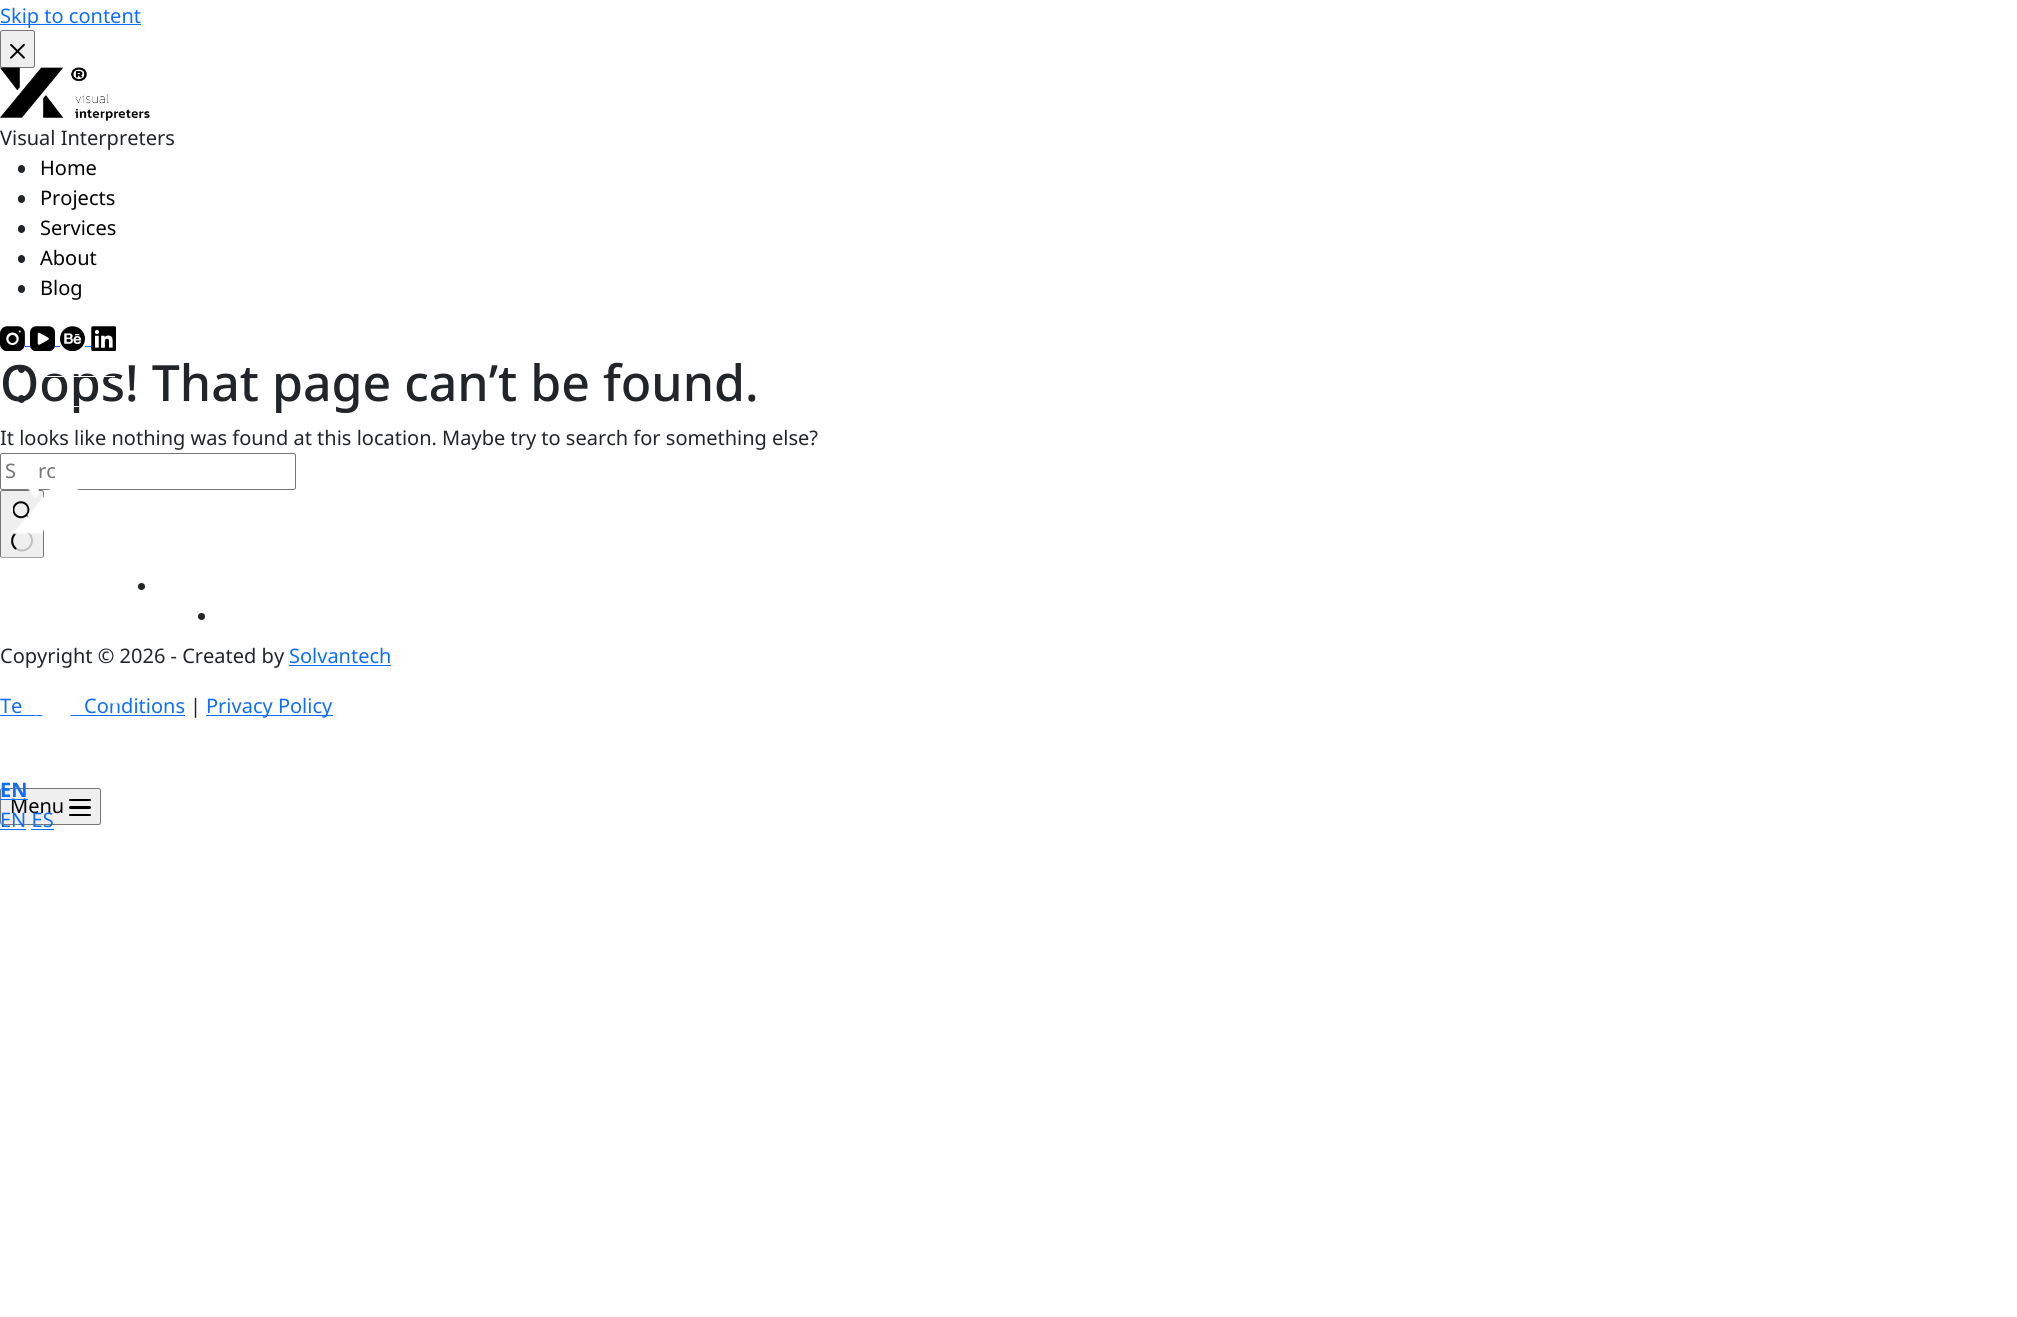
#include <cairo.h>
#include <math.h>
#include <stddef.h>

static cairo_t *ctx;

static void use_color(int r, int g, int b) {
    cairo_set_source_rgb(ctx, r / 255.0, g / 255.0, b / 255.0);
}

static void round_rect(double x, double y, double w, double h, double r) {
    cairo_new_sub_path(ctx);
    cairo_arc(ctx, x + w - r, y + h - r, r, 0, M_PI / 2);
    cairo_arc(ctx, x + r, y + h - r, r, M_PI / 2, M_PI);
    cairo_arc(ctx, x + r, y + r, r, M_PI, 1.5 * M_PI);
    cairo_arc(ctx, x + w - r, y + r, r, 1.5 * M_PI, 2 * M_PI);
    cairo_close_path(ctx);
}

static void picture(const char *path, double x, double y, double w, double h) {
    cairo_surface_t *image = cairo_image_surface_create_from_png(path);
    cairo_save(ctx);
    cairo_set_source_surface(ctx, image, x, y);
    cairo_rectangle(ctx, x, y, w, h);
    cairo_fill(ctx);
    cairo_restore(ctx);
    cairo_surface_destroy(image);
}

int main(void) {
    cairo_surface_t *surface = cairo_image_surface_create(CAIRO_FORMAT_RGB24, 2017, 1317);
    ctx = cairo_create(surface);
    cairo_font_options_t *options = cairo_font_options_create();
    cairo_font_options_set_hint_metrics(options, CAIRO_HINT_METRICS_OFF);
    cairo_font_options_set_hint_style(options, CAIRO_HINT_STYLE_NONE);
    cairo_set_font_options(ctx, options);
    cairo_set_miter_limit(ctx, 4);
    use_color(255, 255, 255);
    cairo_paint(ctx);
    use_color(13, 110, 253);
    cairo_rectangle(ctx, 0, 24, 141, 1);
    cairo_fill(ctx);
    cairo_select_font_face(ctx, "Noto Sans", CAIRO_FONT_SLANT_NORMAL, CAIRO_FONT_WEIGHT_NORMAL);
    cairo_set_font_size(ctx, 20);
    cairo_move_to(ctx, 0, 23);
    cairo_show_text(ctx, "Skip to content");
    use_color(239, 239, 239);
    round_rect(0.5, 30.5, 34, 37, 2);
    cairo_fill_preserve(ctx);
    use_color(118, 118, 118);
    cairo_set_line_width(ctx, 1);
    cairo_stroke(ctx);
    picture("img1.png", 10, 44, 15, 15);
    picture("img2.png", 0, 67, 150, 54);
    use_color(33, 37, 41);
    cairo_move_to(ctx, 0, 145);
    cairo_show_text(ctx, "Visual Interpreters");
    round_rect(18, 165, 7, 8, 3.5);
    cairo_fill(ctx);
    use_color(0, 0, 0);
    cairo_move_to(ctx, 40, 175);
    cairo_show_text(ctx, "Home");
    use_color(33, 37, 41);
    round_rect(18, 195, 7, 8, 3.5);
    cairo_fill(ctx);
    use_color(0, 0, 0);
    cairo_move_to(ctx, 40, 205);
    cairo_show_text(ctx, "Projects");
    use_color(33, 37, 41);
    round_rect(18, 225, 7, 8, 3.5);
    cairo_fill(ctx);
    use_color(0, 0, 0);
    cairo_move_to(ctx, 40, 235);
    cairo_show_text(ctx, "Services");
    use_color(33, 37, 41);
    round_rect(18, 255, 7, 8, 3.5);
    cairo_fill(ctx);
    use_color(0, 0, 0);
    cairo_move_to(ctx, 40, 265);
    cairo_show_text(ctx, "About");
    use_color(33, 37, 41);
    round_rect(18, 285, 7, 8, 3.5);
    cairo_fill(ctx);
    use_color(0, 0, 0);
    cairo_move_to(ctx, 40, 295);
    cairo_show_text(ctx, "Blog");
    picture("img3.png", 0, 326, 25, 25);
    use_color(13, 110, 253);
    cairo_rectangle(ctx, 25, 346, 5, 1);
    cairo_fill(ctx);
    picture("img4.png", 30, 326, 25, 25);
    cairo_rectangle(ctx, 55, 346, 5, 1);
    cairo_fill(ctx);
    picture("img5.png", 60, 326, 25, 25);
    cairo_rectangle(ctx, 85, 346, 6, 1);
    cairo_fill(ctx);
    picture("img6.png", 91, 326, 25, 25);
    cairo_select_font_face(ctx, "Noto Sans Medium", CAIRO_FONT_SLANT_NORMAL, CAIRO_FONT_WEIGHT_NORMAL);
    cairo_set_font_size(ctx, 50);
    use_color(33, 37, 41);
    cairo_move_to(ctx, 0, 401);
    cairo_show_text(ctx, "Oops! That page can’t be found.");
    cairo_select_font_face(ctx, "Noto Sans", CAIRO_FONT_SLANT_NORMAL, CAIRO_FONT_WEIGHT_NORMAL);
    cairo_set_font_size(ctx, 20);
    cairo_move_to(ctx, 0, 445);
    cairo_show_text(ctx, "It looks like nothing was found at this location. Maybe try to search for something else?");
    round_rect(0.5, 453.5, 295, 36, 2);
    use_color(118, 118, 118);
    cairo_stroke(ctx);
    use_color(117, 117, 117);
    cairo_move_to(ctx, 5, 478);
    cairo_show_text(ctx, "S");
    cairo_move_to(ctx, 38, 478);
    cairo_show_text(ctx, "rc");
    use_color(239, 239, 239);
    round_rect(0.5, 490.5, 43, 67, 2);
    cairo_fill_preserve(ctx);
    use_color(118, 118, 118);
    cairo_stroke(ctx);
    picture("img7.png", 13, 501, 17, 18);
    cairo_arc(ctx, 22, 540.5, 10, 0, 2 * M_PI);
    use_color(191, 191, 191);
    cairo_set_line_width(ctx, 2);
    cairo_stroke(ctx);
    cairo_new_path(ctx);
    cairo_move_to(ctx, 15.5, 548.5);
    cairo_curve_to(ctx, 11.5, 545, 11, 538.5, 14.5, 534.5);
    use_color(0, 0, 0);
    cairo_set_line_cap(ctx, CAIRO_LINE_CAP_ROUND);
    cairo_stroke(ctx);
    picture("img8.png", 0, 557, 44, 1);
    use_color(33, 37, 41);
    cairo_move_to(ctx, 0, 663);
    cairo_show_text(ctx, "Copyright © 2026 - Created by");
    use_color(13, 110, 253);
    cairo_move_to(ctx, 289, 663);
    cairo_show_text(ctx, "Solvantech");
    cairo_rectangle(ctx, 289, 665, 102, 1);
    cairo_fill(ctx);
    cairo_move_to(ctx, 0, 713);
    cairo_show_text(ctx, "Te");
    cairo_rectangle(ctx, 0, 715, 185, 1);
    cairo_fill(ctx);
    cairo_move_to(ctx, 84, 713);
    cairo_show_text(ctx, "Conditions");
    use_color(33, 37, 41);
    cairo_move_to(ctx, 190, 713);
    cairo_show_text(ctx, "|");
    use_color(13, 110, 253);
    cairo_rectangle(ctx, 206, 715, 127, 1);
    cairo_fill(ctx);
    cairo_move_to(ctx, 206, 713);
    cairo_show_text(ctx, "Privacy Policy");
    use_color(33, 37, 41);
    round_rect(18, 365, 7, 8, 3.5);
    cairo_fill(ctx);
    use_color(255, 255, 255);
    cairo_rectangle(ctx, 40, 376, 75, 1);
    cairo_fill(ctx);
    use_color(33, 37, 41);
    round_rect(18, 395, 7, 8, 3.5);
    cairo_fill(ctx);
    use_color(255, 255, 255);
    cairo_rectangle(ctx, 73, 406, 7, 1);
    cairo_fill(ctx);
    picture("img9.png", 13, 468, 66, 67);
    use_color(33, 37, 41);
    cairo_arc(ctx, 141.5, 586.5, 3.5, 0, 2 * M_PI);
    cairo_fill(ctx);
    cairo_arc(ctx, 201.5, 616.5, 3.5, 0, 2 * M_PI);
    cairo_fill(ctx);
    picture("img10.png", 24, 698, 95, 18);
    use_color(239, 239, 239);
    round_rect(0.5, 788.5, 100, 36, 2);
    cairo_fill_preserve(ctx);
    use_color(118, 118, 118);
    cairo_set_line_width(ctx, 1);
    cairo_set_line_cap(ctx, CAIRO_LINE_CAP_BUTT);
    cairo_stroke(ctx);
    use_color(0, 0, 0);
    cairo_move_to(ctx, 10, 813);
    cairo_show_text(ctx, "Menu");
    round_rect(69, 799, 22, 2, 1);
    cairo_fill(ctx);
    round_rect(69, 806, 22, 3, 1.5);
    cairo_fill(ctx);
    round_rect(69, 814, 22, 2, 1);
    cairo_fill(ctx);
    cairo_select_font_face(ctx, "Noto Sans", CAIRO_FONT_SLANT_NORMAL, CAIRO_FONT_WEIGHT_BOLD);
    use_color(13, 110, 253);
    cairo_move_to(ctx, 0, 797);
    cairo_show_text(ctx, "EN");
    cairo_rectangle(ctx, 0, 799, 28, 1);
    cairo_fill(ctx);
    cairo_select_font_face(ctx, "Noto Sans", CAIRO_FONT_SLANT_NORMAL, CAIRO_FONT_WEIGHT_NORMAL);
    cairo_move_to(ctx, 0, 827);
    cairo_show_text(ctx, "EN ES");
    cairo_rectangle(ctx, 0, 829, 26, 1);
    cairo_fill(ctx);
    cairo_rectangle(ctx, 31, 829, 23, 1);
    cairo_fill(ctx);
    cairo_surface_write_to_png(surface, "result.png");
    cairo_font_options_destroy(options);
    cairo_destroy(ctx);
    cairo_surface_destroy(surface);
    return 0;
}
